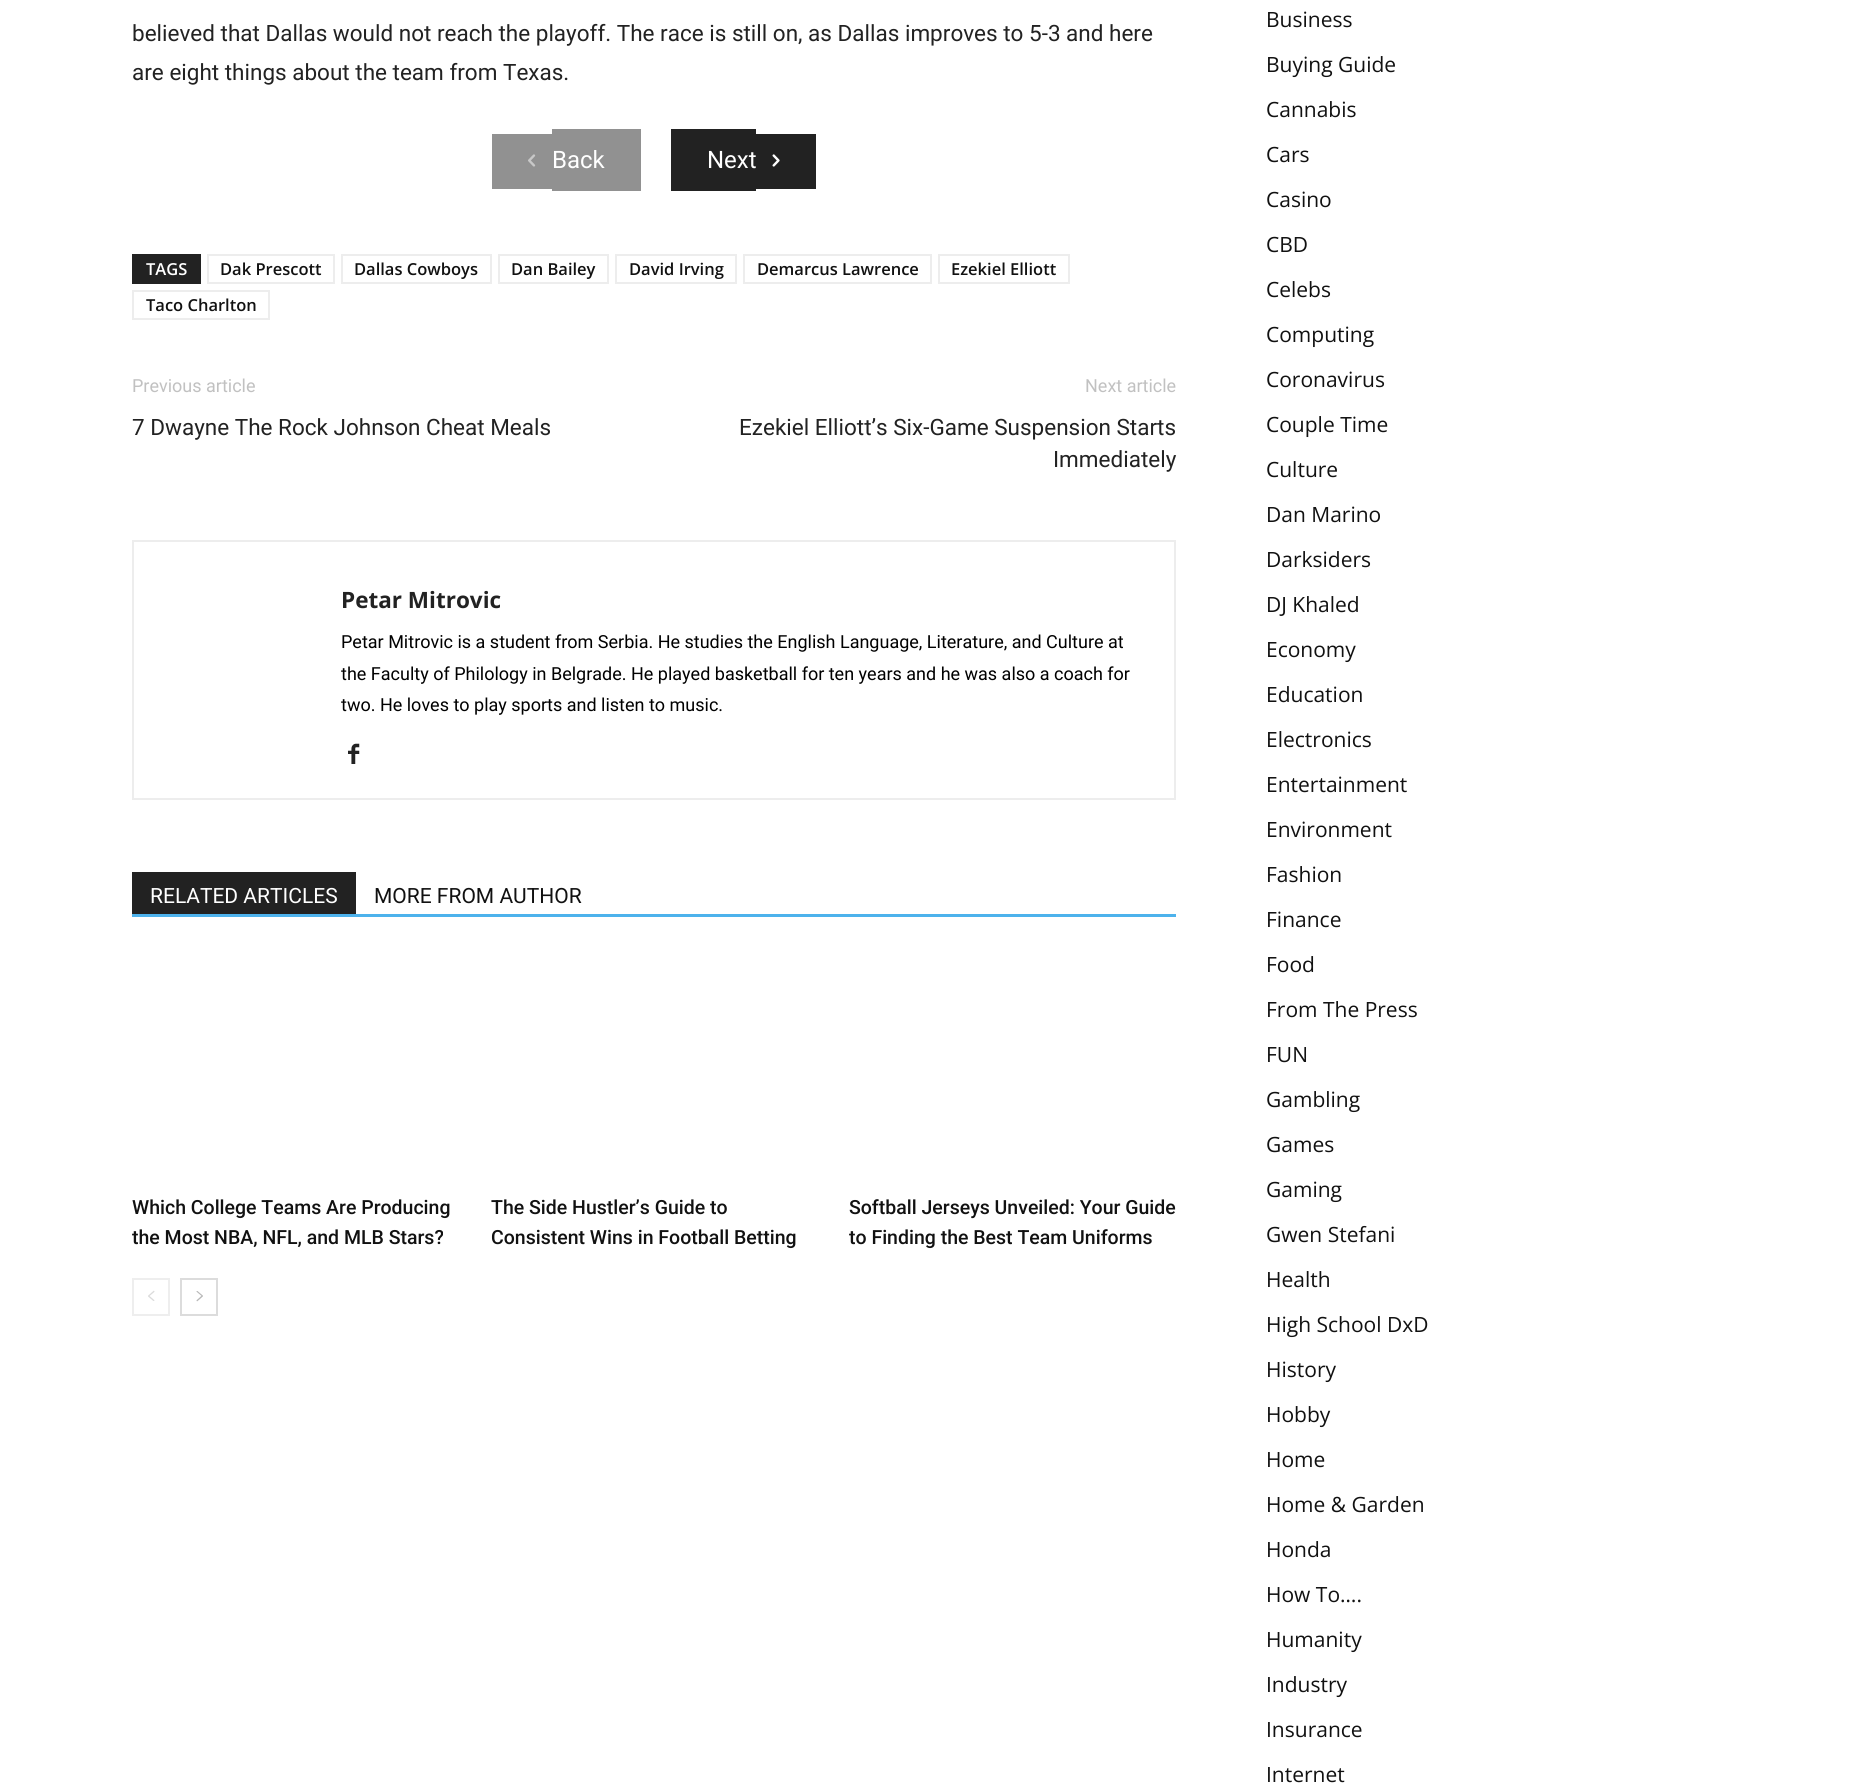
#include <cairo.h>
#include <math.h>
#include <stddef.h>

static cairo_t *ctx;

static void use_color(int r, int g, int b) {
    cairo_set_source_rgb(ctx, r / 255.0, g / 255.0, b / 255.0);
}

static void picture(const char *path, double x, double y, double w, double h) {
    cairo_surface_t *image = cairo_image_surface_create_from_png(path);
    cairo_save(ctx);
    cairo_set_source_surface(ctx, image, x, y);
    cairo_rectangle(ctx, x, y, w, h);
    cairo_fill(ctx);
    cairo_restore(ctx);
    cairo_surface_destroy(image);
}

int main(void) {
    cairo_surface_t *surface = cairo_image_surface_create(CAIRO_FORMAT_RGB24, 1865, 1788);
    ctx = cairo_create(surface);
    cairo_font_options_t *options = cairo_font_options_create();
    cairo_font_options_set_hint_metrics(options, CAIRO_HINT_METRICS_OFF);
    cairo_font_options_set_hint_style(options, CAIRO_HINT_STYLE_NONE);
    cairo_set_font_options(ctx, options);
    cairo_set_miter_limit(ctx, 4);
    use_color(255, 255, 255);
    cairo_paint(ctx);
    cairo_select_font_face(ctx, "Roboto", CAIRO_FONT_SLANT_NORMAL, CAIRO_FONT_WEIGHT_NORMAL);
    cairo_set_font_size(ctx, 22.5);
    use_color(34, 34, 34);
    cairo_move_to(ctx, 132, 41);
    cairo_show_text(ctx, "believed that Dallas would not reach the playoff. The race is still on, as Dallas improves to 5-3 and here");
    cairo_move_to(ctx, 132, 80);
    cairo_show_text(ctx, "are eight things about the team from Texas.");
    use_color(145, 145, 145);
    cairo_rectangle(ctx, 492, 134, 60, 55);
    cairo_fill(ctx);
    cairo_rectangle(ctx, 552, 129, 89, 62);
    cairo_fill(ctx);
    picture("img1.png", 528, 154, 8, 13);
    cairo_set_font_size(ctx, 24);
    use_color(255, 255, 255);
    cairo_move_to(ctx, 552, 168);
    cairo_show_text(ctx, "Back");
    use_color(34, 34, 34);
    cairo_rectangle(ctx, 671, 129, 85, 62);
    cairo_fill(ctx);
    cairo_rectangle(ctx, 756, 134, 60, 55);
    cairo_fill(ctx);
    use_color(255, 255, 255);
    cairo_move_to(ctx, 707, 168);
    cairo_show_text(ctx, "Next");
    picture("img2.png", 772, 154, 8, 13);
    use_color(34, 34, 34);
    cairo_rectangle(ctx, 132, 254, 69, 30);
    cairo_fill(ctx);
    cairo_select_font_face(ctx, "Open Sans SemiBold", CAIRO_FONT_SLANT_NORMAL, CAIRO_FONT_WEIGHT_NORMAL);
    cairo_set_font_size(ctx, 16.5);
    use_color(255, 255, 255);
    cairo_move_to(ctx, 146, 275);
    cairo_show_text(ctx, "TAGS");
    cairo_rectangle(ctx, 208, 255, 126, 28);
    use_color(237, 237, 237);
    cairo_stroke(ctx);
    use_color(17, 17, 17);
    cairo_move_to(ctx, 220, 275);
    cairo_show_text(ctx, "Dak Prescott");
    cairo_rectangle(ctx, 342, 255, 149, 28);
    use_color(237, 237, 237);
    cairo_stroke(ctx);
    use_color(17, 17, 17);
    cairo_move_to(ctx, 354, 275);
    cairo_show_text(ctx, "Dallas Cowboys");
    cairo_rectangle(ctx, 499, 255, 109, 28);
    use_color(237, 237, 237);
    cairo_stroke(ctx);
    use_color(17, 17, 17);
    cairo_move_to(ctx, 511, 275);
    cairo_show_text(ctx, "Dan Bailey");
    cairo_rectangle(ctx, 616, 255, 120, 28);
    use_color(237, 237, 237);
    cairo_stroke(ctx);
    use_color(17, 17, 17);
    cairo_move_to(ctx, 629, 275);
    cairo_show_text(ctx, "David Irving");
    cairo_rectangle(ctx, 744, 255, 187, 28);
    use_color(237, 237, 237);
    cairo_stroke(ctx);
    use_color(17, 17, 17);
    cairo_move_to(ctx, 757, 275);
    cairo_show_text(ctx, "Demarcus Lawrence");
    cairo_rectangle(ctx, 939, 255, 130, 28);
    use_color(237, 237, 237);
    cairo_stroke(ctx);
    use_color(17, 17, 17);
    cairo_move_to(ctx, 951, 275);
    cairo_show_text(ctx, "Ezekiel Elliott");
    cairo_rectangle(ctx, 133, 291, 136, 28);
    use_color(237, 237, 237);
    cairo_stroke(ctx);
    use_color(17, 17, 17);
    cairo_move_to(ctx, 146, 311);
    cairo_show_text(ctx, "Taco Charlton");
    cairo_select_font_face(ctx, "Roboto", CAIRO_FONT_SLANT_NORMAL, CAIRO_FONT_WEIGHT_NORMAL);
    cairo_set_font_size(ctx, 18);
    use_color(193, 193, 193);
    cairo_move_to(ctx, 132, 392);
    cairo_show_text(ctx, "Previous article");
    cairo_set_font_size(ctx, 22.5);
    use_color(34, 34, 34);
    cairo_move_to(ctx, 132, 435);
    cairo_show_text(ctx, "7 Dwayne The Rock Johnson Cheat Meals");
    cairo_set_font_size(ctx, 18);
    use_color(193, 193, 193);
    cairo_move_to(ctx, 1085, 392);
    cairo_show_text(ctx, "Next article");
    cairo_set_font_size(ctx, 22.5);
    use_color(34, 34, 34);
    cairo_move_to(ctx, 739, 435);
    cairo_show_text(ctx, "Ezekiel Elliott’s Six-Game Suspension Starts");
    cairo_move_to(ctx, 1053, 467);
    cairo_show_text(ctx, "Immediately");
    cairo_rectangle(ctx, 133, 541, 1042, 258);
    use_color(237, 237, 237);
    cairo_stroke(ctx);
    cairo_select_font_face(ctx, "Open Sans", CAIRO_FONT_SLANT_NORMAL, CAIRO_FONT_WEIGHT_BOLD);
    use_color(34, 34, 34);
    cairo_move_to(ctx, 341, 608);
    cairo_show_text(ctx, "Petar Mitrovic");
    cairo_select_font_face(ctx, "Roboto", CAIRO_FONT_SLANT_NORMAL, CAIRO_FONT_WEIGHT_NORMAL);
    cairo_set_font_size(ctx, 18);
    use_color(0, 0, 0);
    cairo_move_to(ctx, 341, 648);
    cairo_show_text(ctx, "Petar Mitrovic is a student from Serbia. He studies the English Language, Literature, and Culture at");
    cairo_move_to(ctx, 341, 680);
    cairo_show_text(ctx, "the Faculty of Philology in Belgrade. He played basketball for ten years and he was also a coach for");
    cairo_move_to(ctx, 341, 711);
    cairo_show_text(ctx, "two. He loves to play sports and listen to music.");
    picture("img3.png", 348, 743, 12, 21);
    use_color(77, 178, 236);
    cairo_rectangle(ctx, 132, 914, 1044, 3);
    cairo_fill(ctx);
    use_color(34, 34, 34);
    cairo_rectangle(ctx, 132, 872, 224, 42);
    cairo_fill(ctx);
    cairo_set_font_size(ctx, 21);
    use_color(255, 255, 255);
    cairo_move_to(ctx, 150, 903);
    cairo_show_text(ctx, "RELATED ARTICLES");
    use_color(17, 17, 17);
    cairo_move_to(ctx, 374, 903);
    cairo_show_text(ctx, "MORE FROM AUTHOR");
    cairo_select_font_face(ctx, "Roboto Medium", CAIRO_FONT_SLANT_NORMAL, CAIRO_FONT_WEIGHT_NORMAL);
    cairo_set_font_size(ctx, 19.5);
    cairo_move_to(ctx, 132, 1214);
    cairo_show_text(ctx, "Which College Teams Are Producing");
    cairo_move_to(ctx, 132, 1244);
    cairo_show_text(ctx, "the Most NBA, NFL, and MLB Stars?");
    cairo_move_to(ctx, 491, 1214);
    cairo_show_text(ctx, "The Side Hustler’s Guide to");
    cairo_move_to(ctx, 491, 1244);
    cairo_show_text(ctx, "Consistent Wins in Football Betting");
    cairo_move_to(ctx, 849, 1214);
    cairo_show_text(ctx, "Softball Jerseys Unveiled: Your Guide");
    cairo_move_to(ctx, 849, 1244);
    cairo_show_text(ctx, "to Finding the Best Team Uniforms");
    cairo_rectangle(ctx, 133, 1279, 36, 36);
    use_color(238, 238, 238);
    cairo_stroke(ctx);
    picture("img4.png", 148, 1290, 7, 11);
    cairo_rectangle(ctx, 181, 1279, 36, 36);
    use_color(220, 220, 220);
    cairo_stroke(ctx);
    picture("img5.png", 196, 1291, 7, 11);
    cairo_select_font_face(ctx, "Open Sans", CAIRO_FONT_SLANT_NORMAL, CAIRO_FONT_WEIGHT_NORMAL);
    cairo_set_font_size(ctx, 21);
    use_color(17, 17, 17);
    cairo_move_to(ctx, 1266, 27);
    cairo_show_text(ctx, "Business");
    cairo_move_to(ctx, 1266, 72);
    cairo_show_text(ctx, "Buying Guide");
    cairo_move_to(ctx, 1266, 117);
    cairo_show_text(ctx, "Cannabis");
    cairo_move_to(ctx, 1266, 162);
    cairo_show_text(ctx, "Cars");
    cairo_move_to(ctx, 1266, 207);
    cairo_show_text(ctx, "Casino");
    cairo_move_to(ctx, 1266, 252);
    cairo_show_text(ctx, "CBD");
    cairo_move_to(ctx, 1266, 297);
    cairo_show_text(ctx, "Celebs");
    cairo_move_to(ctx, 1266, 342);
    cairo_show_text(ctx, "Computing");
    cairo_move_to(ctx, 1266, 387);
    cairo_show_text(ctx, "Coronavirus");
    cairo_move_to(ctx, 1266, 432);
    cairo_show_text(ctx, "Couple Time");
    cairo_move_to(ctx, 1266, 477);
    cairo_show_text(ctx, "Culture");
    cairo_move_to(ctx, 1266, 522);
    cairo_show_text(ctx, "Dan Marino");
    cairo_move_to(ctx, 1266, 567);
    cairo_show_text(ctx, "Darksiders");
    cairo_move_to(ctx, 1266, 612);
    cairo_show_text(ctx, "DJ Khaled");
    cairo_move_to(ctx, 1266, 657);
    cairo_show_text(ctx, "Economy");
    cairo_move_to(ctx, 1266, 702);
    cairo_show_text(ctx, "Education");
    cairo_move_to(ctx, 1266, 747);
    cairo_show_text(ctx, "Electronics");
    cairo_move_to(ctx, 1266, 792);
    cairo_show_text(ctx, "Entertainment");
    cairo_move_to(ctx, 1266, 837);
    cairo_show_text(ctx, "Environment");
    cairo_move_to(ctx, 1266, 882);
    cairo_show_text(ctx, "Fashion");
    cairo_move_to(ctx, 1266, 927);
    cairo_show_text(ctx, "Finance");
    cairo_move_to(ctx, 1266, 972);
    cairo_show_text(ctx, "Food");
    cairo_move_to(ctx, 1266, 1017);
    cairo_show_text(ctx, "From The Press");
    cairo_move_to(ctx, 1266, 1062);
    cairo_show_text(ctx, "FUN");
    cairo_move_to(ctx, 1266, 1107);
    cairo_show_text(ctx, "Gambling");
    cairo_move_to(ctx, 1266, 1152);
    cairo_show_text(ctx, "Games");
    cairo_move_to(ctx, 1266, 1197);
    cairo_show_text(ctx, "Gaming");
    cairo_move_to(ctx, 1266, 1242);
    cairo_show_text(ctx, "Gwen Stefani");
    cairo_move_to(ctx, 1266, 1287);
    cairo_show_text(ctx, "Health");
    cairo_move_to(ctx, 1266, 1332);
    cairo_show_text(ctx, "High School DxD");
    cairo_move_to(ctx, 1266, 1377);
    cairo_show_text(ctx, "History");
    cairo_move_to(ctx, 1266, 1422);
    cairo_show_text(ctx, "Hobby");
    cairo_move_to(ctx, 1266, 1467);
    cairo_show_text(ctx, "Home");
    cairo_move_to(ctx, 1266, 1512);
    cairo_show_text(ctx, "Home & Garden");
    cairo_move_to(ctx, 1266, 1557);
    cairo_show_text(ctx, "Honda");
    cairo_move_to(ctx, 1266, 1602);
    cairo_show_text(ctx, "How To….");
    cairo_move_to(ctx, 1266, 1647);
    cairo_show_text(ctx, "Humanity");
    cairo_move_to(ctx, 1266, 1692);
    cairo_show_text(ctx, "Industry");
    cairo_move_to(ctx, 1266, 1737);
    cairo_show_text(ctx, "Insurance");
    cairo_move_to(ctx, 1266, 1782);
    cairo_show_text(ctx, "Internet");
    cairo_surface_write_to_png(surface, "result.png");
    cairo_font_options_destroy(options);
    cairo_destroy(ctx);
    cairo_surface_destroy(surface);
    return 0;
}
